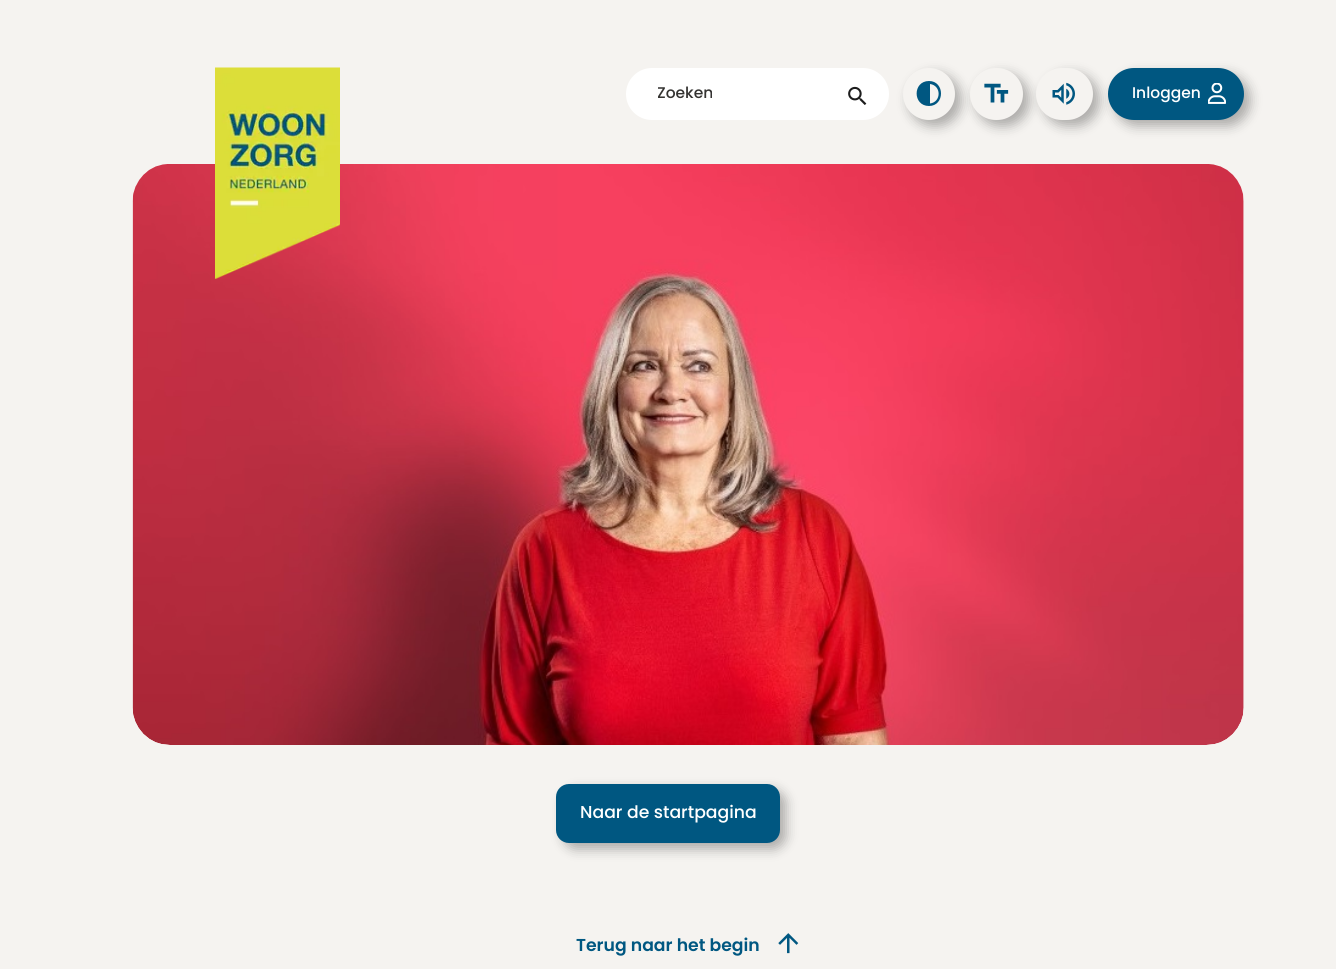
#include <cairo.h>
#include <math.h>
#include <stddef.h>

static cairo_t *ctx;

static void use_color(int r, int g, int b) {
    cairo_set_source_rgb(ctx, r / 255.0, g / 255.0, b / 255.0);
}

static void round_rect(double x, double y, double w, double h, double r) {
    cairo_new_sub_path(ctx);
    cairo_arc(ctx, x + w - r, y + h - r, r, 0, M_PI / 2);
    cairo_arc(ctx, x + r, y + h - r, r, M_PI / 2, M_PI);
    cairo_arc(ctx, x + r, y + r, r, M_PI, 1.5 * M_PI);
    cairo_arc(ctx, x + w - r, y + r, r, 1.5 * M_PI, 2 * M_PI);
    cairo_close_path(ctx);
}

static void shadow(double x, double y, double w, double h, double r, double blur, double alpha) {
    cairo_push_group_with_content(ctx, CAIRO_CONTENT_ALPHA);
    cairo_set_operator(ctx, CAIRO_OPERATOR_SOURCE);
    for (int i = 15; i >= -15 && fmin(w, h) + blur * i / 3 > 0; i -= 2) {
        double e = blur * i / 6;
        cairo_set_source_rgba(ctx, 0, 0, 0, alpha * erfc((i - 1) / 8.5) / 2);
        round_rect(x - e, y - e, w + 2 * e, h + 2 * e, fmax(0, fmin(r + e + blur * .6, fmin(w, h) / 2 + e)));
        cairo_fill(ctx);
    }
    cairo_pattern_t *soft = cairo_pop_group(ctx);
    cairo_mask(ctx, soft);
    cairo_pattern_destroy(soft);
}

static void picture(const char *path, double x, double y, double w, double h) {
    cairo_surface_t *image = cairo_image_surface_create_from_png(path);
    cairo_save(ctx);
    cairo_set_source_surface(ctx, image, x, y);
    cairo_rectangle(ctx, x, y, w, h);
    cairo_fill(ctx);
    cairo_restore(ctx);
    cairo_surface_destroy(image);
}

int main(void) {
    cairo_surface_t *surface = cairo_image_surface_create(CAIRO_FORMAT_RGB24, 1336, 969);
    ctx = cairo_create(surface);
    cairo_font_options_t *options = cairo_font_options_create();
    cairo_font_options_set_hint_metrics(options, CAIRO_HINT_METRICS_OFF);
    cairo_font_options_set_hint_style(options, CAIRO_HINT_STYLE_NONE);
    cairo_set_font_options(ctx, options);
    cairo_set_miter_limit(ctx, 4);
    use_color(245, 243, 240);
    cairo_paint(ctx);
    picture("img6.png", 132, 164, 1112, 581);
    picture("img1.png", 215, 67, 125, 212);
    use_color(255, 255, 255);
    round_rect(626, 68, 263, 52, 26);
    cairo_fill(ctx);
    cairo_save(ctx);
    cairo_rectangle(ctx, 658, 83, 200, 22);
    cairo_clip(ctx);
    cairo_select_font_face(ctx, "Poppins Medium", CAIRO_FONT_SLANT_NORMAL, CAIRO_FONT_WEIGHT_NORMAL);
    cairo_set_font_size(ctx, 15.5);
    use_color(52, 51, 49);
    cairo_move_to(ctx, 657, 98);
    cairo_show_text(ctx, "Zoeken");
    cairo_restore(ctx);
    picture("img2.png", 848, 86, 19, 19);
    use_color(0, 0, 0);
    shadow(909, 74, 52, 52, 26, 6, 0.3);
    use_color(245, 243, 240);
    cairo_arc(ctx, 929, 94, 26, 0, 2 * M_PI);
    cairo_fill(ctx);
    use_color(0, 87, 129);
    cairo_new_path(ctx);
    cairo_move_to(ctx, 929, 106);
    cairo_curve_to(ctx, 945, 106, 945, 81, 929, 81);
    cairo_curve_to(ctx, 912.5, 81, 912.5, 106, 929, 106);
    cairo_close_path(ctx);
    cairo_move_to(ctx, 930, 84);
    cairo_curve_to(ctx, 941.5, 85.5, 941.5, 102, 930, 103.5);
    cairo_close_path(ctx);
    cairo_fill(ctx);
    use_color(0, 0, 0);
    shadow(976, 74, 53, 52, 26, 6, 0.3);
    use_color(245, 243, 240);
    round_rect(970, 68, 53, 52, 26);
    cairo_fill(ctx);
    picture("img3.png", 984, 83, 25, 20);
    use_color(0, 0, 0);
    shadow(1043, 74, 56, 52, 26, 6, 0.3);
    use_color(245, 243, 240);
    round_rect(1036, 68, 57, 52, 26);
    cairo_fill(ctx);
    picture("img4.png", 1052, 82, 23, 23);
    use_color(0, 0, 0);
    shadow(1114, 74, 136, 52, 26, 6, 0.3);
    use_color(0, 87, 129);
    round_rect(1108, 68, 136, 52, 26);
    cairo_fill(ctx);
    cairo_select_font_face(ctx, "Poppins Medium", CAIRO_FONT_SLANT_NORMAL, CAIRO_FONT_WEIGHT_NORMAL);
    cairo_set_font_size(ctx, 15.5);
    use_color(255, 255, 255);
    cairo_move_to(ctx, 1132, 98);
    cairo_show_text(ctx, "Inloggen");
    picture("img5.png", 1208, 83, 18, 21);
    use_color(0, 0, 0);
    shadow(563, 790, 223, 59, 13, 6, 0.3);
    use_color(0, 87, 129);
    round_rect(556, 784, 224, 59, 13);
    cairo_fill(ctx);
    cairo_set_font_size(ctx, 17.25);
    use_color(255, 255, 255);
    cairo_move_to(ctx, 580, 818);
    cairo_show_text(ctx, "Naar de startpagina");
    cairo_select_font_face(ctx, "Poppins SemiBold", CAIRO_FONT_SLANT_NORMAL, CAIRO_FONT_WEIGHT_NORMAL);
    use_color(0, 87, 129);
    cairo_move_to(ctx, 576, 951);
    cairo_show_text(ctx, "Terug naar het begin");
    picture("img7.png", 778, 933, 21, 21);
    cairo_surface_write_to_png(surface, "result.png");
    cairo_font_options_destroy(options);
    cairo_destroy(ctx);
    cairo_surface_destroy(surface);
    return 0;
}
